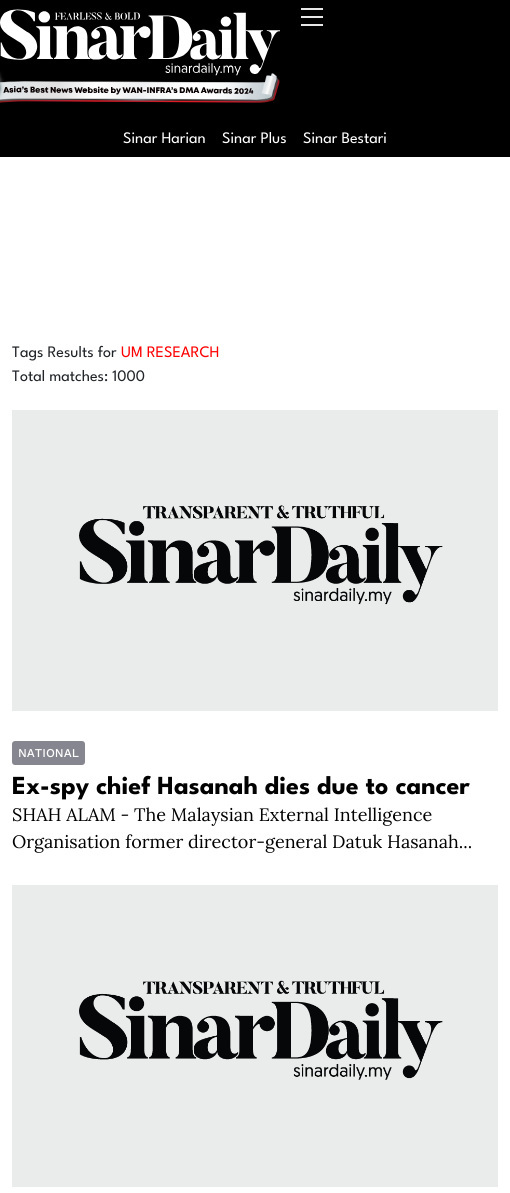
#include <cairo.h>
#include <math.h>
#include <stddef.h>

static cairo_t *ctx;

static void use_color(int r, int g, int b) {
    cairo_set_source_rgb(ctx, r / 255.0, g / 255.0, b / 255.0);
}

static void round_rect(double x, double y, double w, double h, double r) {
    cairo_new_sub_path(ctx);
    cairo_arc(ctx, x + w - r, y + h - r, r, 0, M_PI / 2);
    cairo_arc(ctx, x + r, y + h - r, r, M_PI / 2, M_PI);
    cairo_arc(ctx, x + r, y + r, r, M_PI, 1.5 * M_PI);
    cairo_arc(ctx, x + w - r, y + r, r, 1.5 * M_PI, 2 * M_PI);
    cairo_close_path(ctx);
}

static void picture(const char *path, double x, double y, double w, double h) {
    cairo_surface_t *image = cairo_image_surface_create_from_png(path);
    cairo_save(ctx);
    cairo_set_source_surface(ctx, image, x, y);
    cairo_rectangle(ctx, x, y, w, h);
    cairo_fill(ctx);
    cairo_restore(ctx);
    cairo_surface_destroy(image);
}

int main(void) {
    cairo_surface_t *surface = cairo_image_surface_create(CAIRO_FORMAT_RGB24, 510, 1193);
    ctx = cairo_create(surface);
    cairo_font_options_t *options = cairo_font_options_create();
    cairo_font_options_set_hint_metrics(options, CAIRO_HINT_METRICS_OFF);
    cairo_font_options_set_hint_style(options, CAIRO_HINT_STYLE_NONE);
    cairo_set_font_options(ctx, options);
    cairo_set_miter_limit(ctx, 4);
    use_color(255, 255, 255);
    cairo_paint(ctx);
    use_color(0, 0, 0);
    cairo_rectangle(ctx, 0, 0, 510, 157);
    cairo_fill(ctx);
    picture("img1.png", 0, 9, 280, 94);
    picture("img2.png", 301, 8, 22, 18);
    cairo_select_font_face(ctx, "League Spartan", CAIRO_FONT_SLANT_NORMAL, CAIRO_FONT_WEIGHT_NORMAL);
    cairo_set_font_size(ctx, 16);
    use_color(255, 255, 255);
    cairo_move_to(ctx, 123, 143);
    cairo_show_text(ctx, "Sinar Harian");
    cairo_move_to(ctx, 222, 143);
    cairo_show_text(ctx, "Sinar Plus");
    cairo_move_to(ctx, 303, 143);
    cairo_show_text(ctx, "Sinar Bestari");
    use_color(33, 37, 41);
    cairo_move_to(ctx, 12, 357);
    cairo_show_text(ctx, "Tags Results for");
    use_color(255, 0, 0);
    cairo_move_to(ctx, 121, 357);
    cairo_show_text(ctx, "UM RESEARCH");
    use_color(33, 37, 41);
    cairo_move_to(ctx, 12, 381);
    cairo_show_text(ctx, "Total matches: 1000");
    picture("img3.png", 12, 410, 486, 301);
    use_color(134, 134, 144);
    round_rect(12, 741, 73, 24, 3);
    cairo_fill(ctx);
    cairo_select_font_face(ctx, "Work Sans Medium", CAIRO_FONT_SLANT_NORMAL, CAIRO_FONT_WEIGHT_NORMAL);
    cairo_set_font_size(ctx, 12);
    use_color(255, 255, 255);
    cairo_move_to(ctx, 18, 757);
    cairo_show_text(ctx, "NATIONAL");
    cairo_select_font_face(ctx, "League Spartan", CAIRO_FONT_SLANT_NORMAL, CAIRO_FONT_WEIGHT_BOLD);
    cairo_set_font_size(ctx, 26);
    use_color(0, 0, 0);
    cairo_move_to(ctx, 12, 794);
    cairo_show_text(ctx, "Ex-spy chief Hasanah dies due to cancer");
    cairo_select_font_face(ctx, "Lora", CAIRO_FONT_SLANT_NORMAL, CAIRO_FONT_WEIGHT_NORMAL);
    cairo_set_font_size(ctx, 18);
    cairo_move_to(ctx, 12, 821);
    cairo_show_text(ctx, "SHAH ALAM - The Malaysian External Intelligence");
    cairo_move_to(ctx, 12, 848);
    cairo_show_text(ctx, "Organisation former director-general Datuk Hasanah...");
    picture("img4.png", 12, 885, 486, 302);
    cairo_surface_write_to_png(surface, "result.png");
    cairo_font_options_destroy(options);
    cairo_destroy(ctx);
    cairo_surface_destroy(surface);
    return 0;
}
